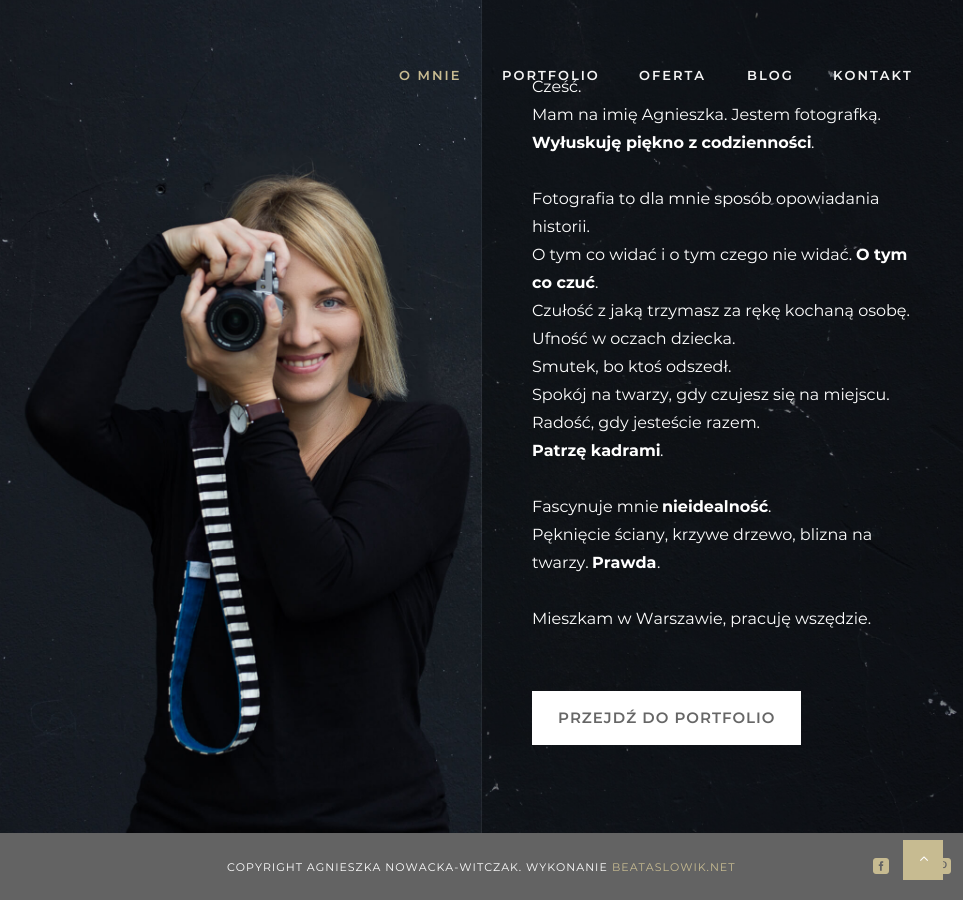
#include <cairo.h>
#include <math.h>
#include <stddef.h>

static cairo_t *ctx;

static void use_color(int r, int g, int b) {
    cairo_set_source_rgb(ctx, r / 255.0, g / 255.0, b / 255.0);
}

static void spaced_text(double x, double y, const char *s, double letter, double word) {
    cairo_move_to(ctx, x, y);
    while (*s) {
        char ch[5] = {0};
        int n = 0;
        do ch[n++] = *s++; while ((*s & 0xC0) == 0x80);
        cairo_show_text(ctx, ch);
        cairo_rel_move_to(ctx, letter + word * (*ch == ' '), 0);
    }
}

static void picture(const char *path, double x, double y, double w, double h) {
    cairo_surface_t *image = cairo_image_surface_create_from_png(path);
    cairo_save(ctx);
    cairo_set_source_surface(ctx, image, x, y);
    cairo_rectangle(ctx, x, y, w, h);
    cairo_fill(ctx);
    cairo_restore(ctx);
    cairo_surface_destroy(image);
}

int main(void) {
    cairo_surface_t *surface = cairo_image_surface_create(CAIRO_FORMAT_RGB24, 963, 900);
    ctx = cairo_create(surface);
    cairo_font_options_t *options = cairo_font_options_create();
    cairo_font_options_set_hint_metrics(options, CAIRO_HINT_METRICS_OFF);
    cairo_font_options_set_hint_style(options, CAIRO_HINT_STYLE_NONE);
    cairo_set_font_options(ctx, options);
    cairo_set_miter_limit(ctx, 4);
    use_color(255, 255, 255);
    cairo_paint(ctx);
    picture("img1.png", 0, 0, 482, 833);
    cairo_select_font_face(ctx, "Montserrat SemiBold", CAIRO_FONT_SLANT_NORMAL, CAIRO_FONT_WEIGHT_NORMAL);
    cairo_set_font_size(ctx, 13);
    use_color(199, 187, 145);
    spaced_text(399, 80, "O MNIE", 2, 0);
    picture("img2.png", 482, 0, 481, 833);
    use_color(245, 245, 245);
    spaced_text(502, 80, "PORTFOLIO", 2, 0);
    spaced_text(639, 80, "OFERTA", 2, 0);
    spaced_text(747, 80, "BLOG", 2, 0);
    spaced_text(833, 80, "KONTAKT", 2, 0);
    cairo_select_font_face(ctx, "Montserrat", CAIRO_FONT_SLANT_NORMAL, CAIRO_FONT_WEIGHT_NORMAL);
    cairo_set_font_size(ctx, 16);
    use_color(255, 255, 255);
    cairo_move_to(ctx, 532, 92);
    cairo_show_text(ctx, "Cześć.");
    cairo_move_to(ctx, 532, 120);
    cairo_show_text(ctx, "Mam na imię Agnieszka. Jestem fotografką.");
    cairo_select_font_face(ctx, "Montserrat", CAIRO_FONT_SLANT_NORMAL, CAIRO_FONT_WEIGHT_BOLD);
    cairo_move_to(ctx, 532, 148);
    cairo_show_text(ctx, "Wyłuskuję piękno z codzienności");
    cairo_select_font_face(ctx, "Montserrat", CAIRO_FONT_SLANT_NORMAL, CAIRO_FONT_WEIGHT_NORMAL);
    cairo_move_to(ctx, 811, 148);
    cairo_show_text(ctx, ".");
    cairo_move_to(ctx, 532, 204);
    cairo_show_text(ctx, "Fotografia to dla mnie sposób opowiadania");
    cairo_move_to(ctx, 532, 232);
    cairo_show_text(ctx, "historii.");
    cairo_move_to(ctx, 532, 260);
    cairo_show_text(ctx, "O tym co widać i o tym czego nie widać.");
    cairo_select_font_face(ctx, "Montserrat", CAIRO_FONT_SLANT_NORMAL, CAIRO_FONT_WEIGHT_BOLD);
    cairo_move_to(ctx, 856, 260);
    cairo_show_text(ctx, "O tym");
    cairo_move_to(ctx, 532, 288);
    cairo_show_text(ctx, "co czuć");
    cairo_select_font_face(ctx, "Montserrat", CAIRO_FONT_SLANT_NORMAL, CAIRO_FONT_WEIGHT_NORMAL);
    cairo_move_to(ctx, 595, 288);
    cairo_show_text(ctx, ".");
    cairo_move_to(ctx, 532, 316);
    cairo_show_text(ctx, "Czułość z jaką trzymasz za rękę kochaną osobę.");
    cairo_move_to(ctx, 532, 344);
    cairo_show_text(ctx, "Ufność w oczach dziecka.");
    cairo_move_to(ctx, 532, 372);
    cairo_show_text(ctx, "Smutek, bo ktoś odszedł.");
    cairo_move_to(ctx, 532, 400);
    cairo_show_text(ctx, "Spokój na twarzy, gdy czujesz się na miejscu.");
    cairo_move_to(ctx, 532, 428);
    cairo_show_text(ctx, "Radość, gdy jesteście razem.");
    cairo_select_font_face(ctx, "Montserrat", CAIRO_FONT_SLANT_NORMAL, CAIRO_FONT_WEIGHT_BOLD);
    cairo_move_to(ctx, 532, 456);
    cairo_show_text(ctx, "Patrzę kadrami");
    cairo_select_font_face(ctx, "Montserrat", CAIRO_FONT_SLANT_NORMAL, CAIRO_FONT_WEIGHT_NORMAL);
    cairo_move_to(ctx, 660, 456);
    cairo_show_text(ctx, ".");
    cairo_move_to(ctx, 532, 512);
    cairo_show_text(ctx, "Fascynuje mnie");
    cairo_select_font_face(ctx, "Montserrat", CAIRO_FONT_SLANT_NORMAL, CAIRO_FONT_WEIGHT_BOLD);
    cairo_move_to(ctx, 662, 512);
    cairo_show_text(ctx, "nieidealność");
    cairo_select_font_face(ctx, "Montserrat", CAIRO_FONT_SLANT_NORMAL, CAIRO_FONT_WEIGHT_NORMAL);
    cairo_move_to(ctx, 768, 512);
    cairo_show_text(ctx, ".");
    cairo_move_to(ctx, 532, 540);
    cairo_show_text(ctx, "Pęknięcie ściany, krzywe drzewo, blizna na");
    cairo_move_to(ctx, 532, 568);
    cairo_show_text(ctx, "twarzy.");
    cairo_select_font_face(ctx, "Montserrat", CAIRO_FONT_SLANT_NORMAL, CAIRO_FONT_WEIGHT_BOLD);
    cairo_move_to(ctx, 592, 568);
    cairo_show_text(ctx, "Prawda");
    cairo_select_font_face(ctx, "Montserrat", CAIRO_FONT_SLANT_NORMAL, CAIRO_FONT_WEIGHT_NORMAL);
    cairo_move_to(ctx, 657, 568);
    cairo_show_text(ctx, ".");
    cairo_move_to(ctx, 532, 624);
    cairo_show_text(ctx, "Mieszkam w Warszawie, pracuję wszędzie.");
    cairo_rectangle(ctx, 532, 691, 269, 54);
    cairo_fill(ctx);
    cairo_select_font_face(ctx, "Montserrat SemiBold", CAIRO_FONT_SLANT_NORMAL, CAIRO_FONT_WEIGHT_NORMAL);
    cairo_set_font_size(ctx, 15);
    use_color(102, 102, 102);
    spaced_text(558, 723, "PRZEJDŹ DO PORTFOLIO", 1, 0);
    use_color(99, 99, 99);
    cairo_rectangle(ctx, 0, 833, 963, 67);
    cairo_fill(ctx);
    cairo_select_font_face(ctx, "Montserrat", CAIRO_FONT_SLANT_NORMAL, CAIRO_FONT_WEIGHT_NORMAL);
    cairo_set_font_size(ctx, 11);
    use_color(255, 255, 255);
    spaced_text(227, 871, "COPYRIGHT AGNIESZKA NOWACKA-WITCZAK. WYKONANIE", 1, 0);
    use_color(199, 187, 145);
    spaced_text(612, 871, "BEATASLOWIK.NET", 1, 0);
    picture("img3.png", 873, 858, 16, 16);
    picture("img4.png", 943, 858, 8, 16);
    cairo_rectangle(ctx, 903, 840, 40, 40);
    cairo_fill(ctx);
    picture("img5.png", 920, 856, 8, 5);
    cairo_surface_write_to_png(surface, "result.png");
    cairo_font_options_destroy(options);
    cairo_destroy(ctx);
    cairo_surface_destroy(surface);
    return 0;
}
